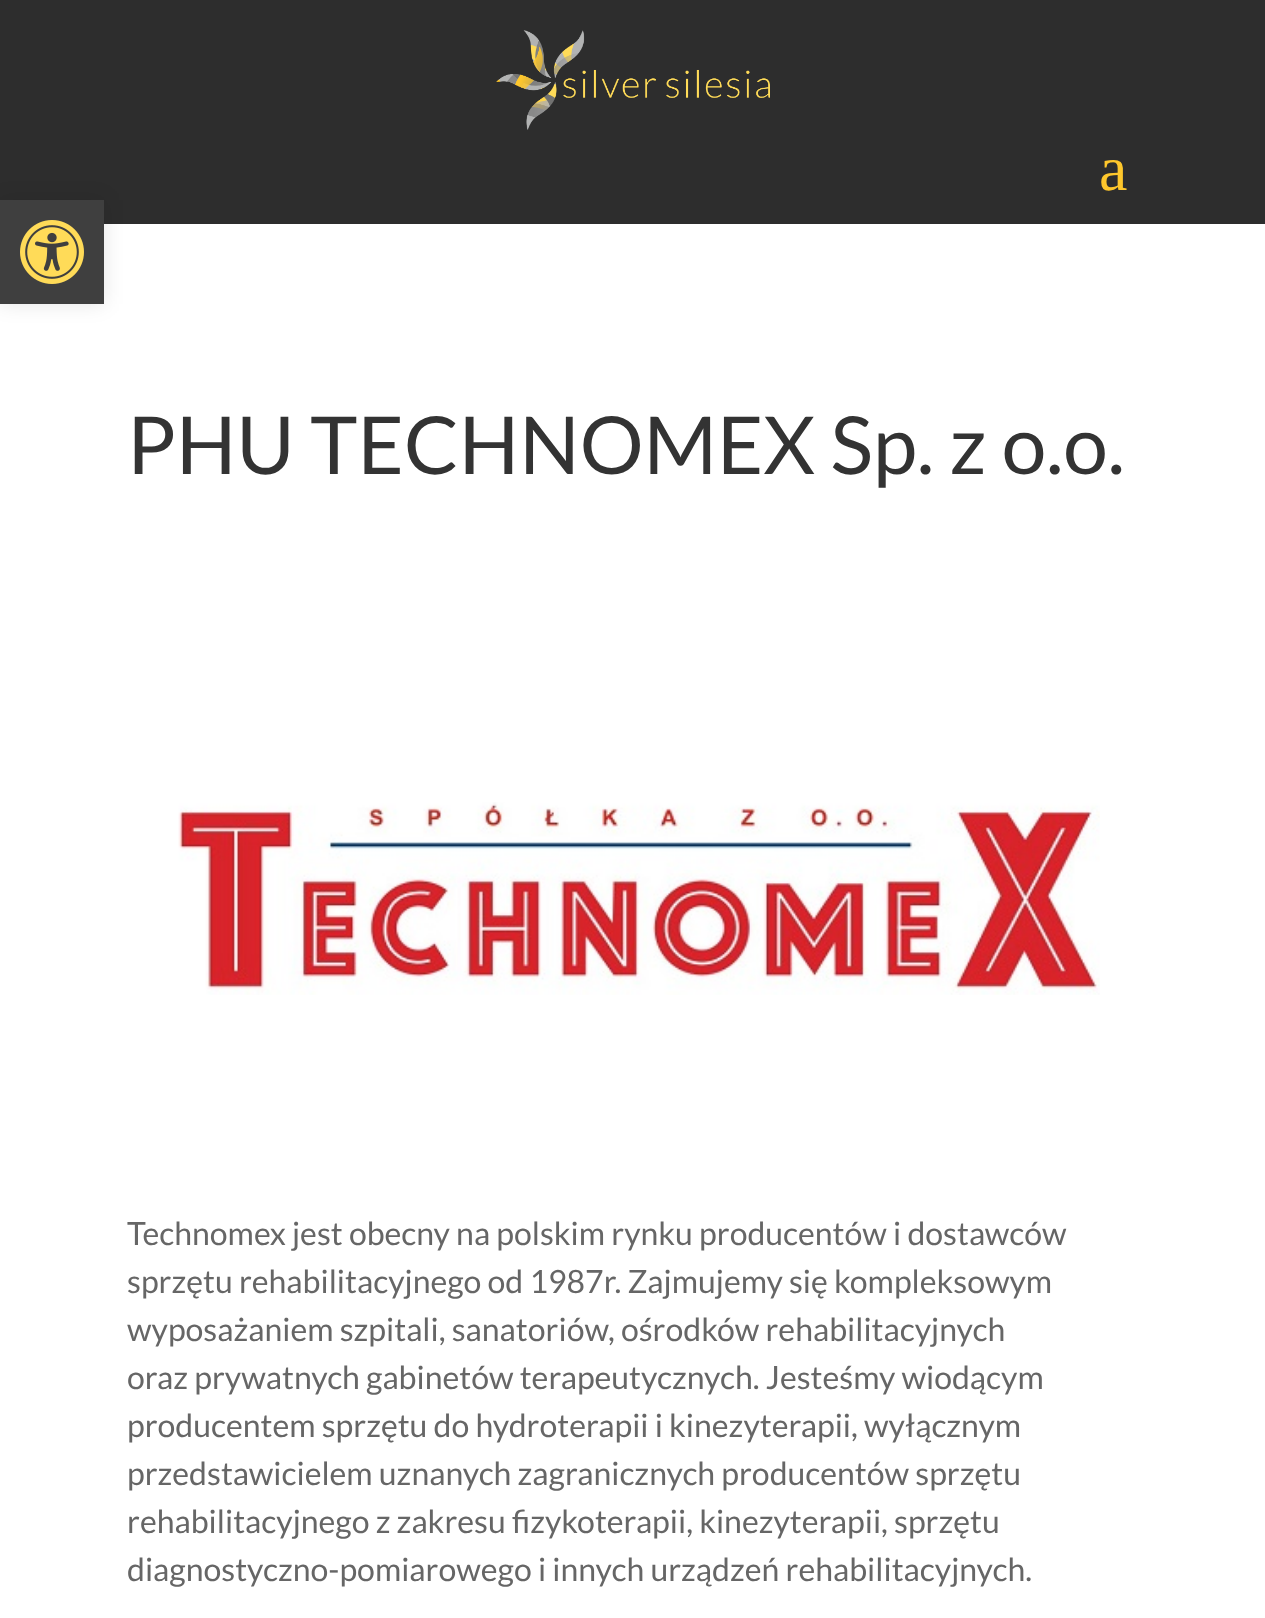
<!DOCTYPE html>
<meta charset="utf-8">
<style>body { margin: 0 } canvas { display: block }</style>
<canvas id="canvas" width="1265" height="1618"></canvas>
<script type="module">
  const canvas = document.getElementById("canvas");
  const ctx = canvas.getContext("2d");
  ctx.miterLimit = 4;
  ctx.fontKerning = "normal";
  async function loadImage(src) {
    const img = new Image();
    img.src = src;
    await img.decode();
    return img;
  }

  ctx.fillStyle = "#ffffff";
  ctx.fillRect(0, 0, 1265, 1618);
  ctx.fillStyle = "#2d2d2d";
  ctx.fillRect(0, 0, 1265, 224);
  ctx.fillStyle = "rgba(0, 0, 0, 0.1)";
  ctx.filter = "blur(10px)";
  ctx.beginPath();
  ctx.rect(0, 200, 104, 104);
  ctx.fill();
  ctx.filter = "none";
  ctx.fillStyle = "#3f3f3f";
  ctx.fillRect(0, 200, 104, 104);
  ctx.drawImage(await loadImage("img1.png"), 20, 220, 64, 64);
  ctx.drawImage(await loadImage("img2.png"), 496, 30, 274, 100);
  ctx.font = "64px Liberation Serif";
  ctx.fillStyle = "#fec72c";
  ctx.fillText("a", 1099, 190);
  ctx.font = "80px Lato";
  ctx.fillStyle = "#333333";
  ctx.fillText("PHU TECHNOMEX Sp. z o.o.", 127, 474);
  ctx.drawImage(await loadImage("img3.png"), 178, 802, 922, 193);
  ctx.font = "32px Lato";
  ctx.fillStyle = "#666666";
  ctx.fillText("Technomex jest obecny na polskim rynku producentów i dostawców", 127, 1245);
  ctx.fillText("sprzętu rehabilitacyjnego od 1987r. Zajmujemy się kompleksowym", 127, 1293);
  ctx.fillText("wyposażaniem szpitali, sanatoriów, ośrodków rehabilitacyjnych", 127, 1341);
  ctx.fillText("oraz prywatnych gabinetów terapeutycznych. Jesteśmy wiodącym", 127, 1389);
  ctx.fillText("producentem sprzętu do hydroterapii i kinezyterapii, wyłącznym", 127, 1437);
  ctx.fillText("przedstawicielem uznanych zagranicznych producentów sprzętu", 127, 1485);
  ctx.fillText("rehabilitacyjnego z zakresu fizykoterapii, kinezyterapii, sprzętu", 127, 1533);
  ctx.fillText("diagnostyczno-pomiarowego i innych urządzeń rehabilitacyjnych.", 127, 1581);
</script>
